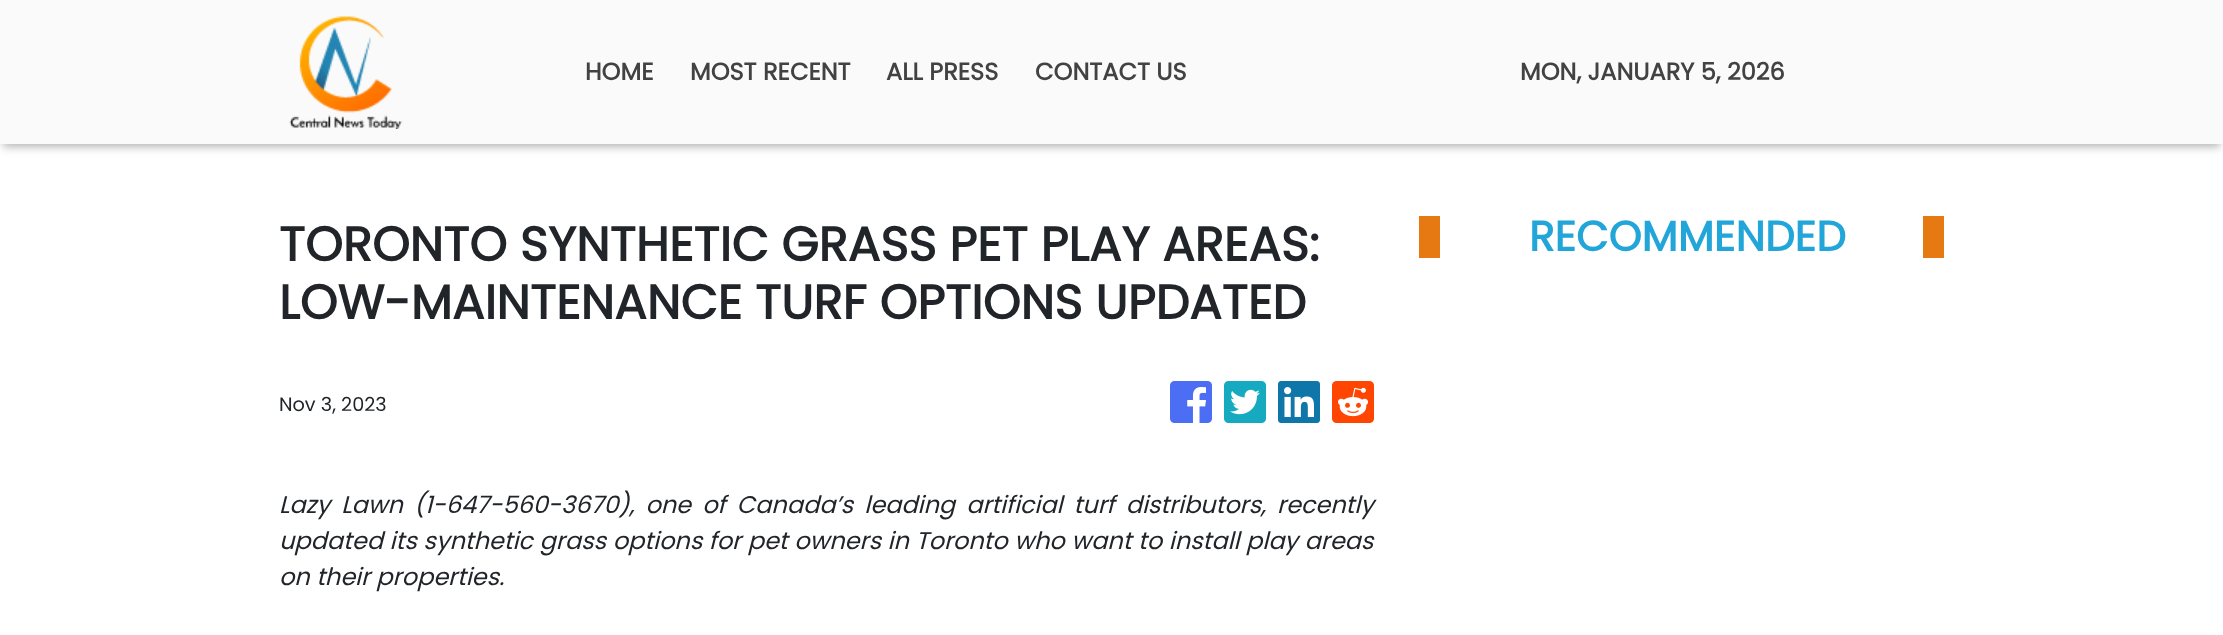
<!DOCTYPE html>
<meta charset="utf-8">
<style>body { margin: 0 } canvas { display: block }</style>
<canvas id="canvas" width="2223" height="635"></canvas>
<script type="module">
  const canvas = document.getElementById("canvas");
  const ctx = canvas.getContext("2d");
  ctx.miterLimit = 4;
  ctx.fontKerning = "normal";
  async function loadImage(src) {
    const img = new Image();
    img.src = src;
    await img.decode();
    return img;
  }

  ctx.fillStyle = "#ffffff";
  ctx.fillRect(0, 0, 2223, 635);
  ctx.fillStyle = "#b6b6b6";
  ctx.filter = "blur(4px)";
  ctx.beginPath();
  ctx.rect(3, 9, 2217, 138);
  ctx.fill();
  ctx.filter = "none";
  ctx.fillStyle = "#fafafa";
  ctx.fillRect(0, 0, 2223, 144);
  ctx.drawImage(await loadImage("img1.png"), 289, 16, 114, 113);
  ctx.font = "bold 24px Poppins";
  ctx.fillStyle = "#424242";
  ctx.fillText("HOME", 585, 80);
  ctx.fillText("MOST RECENT", 690, 80);
  ctx.fillText("ALL PRESS", 886, 80);
  ctx.fillText("CONTACT US", 1035, 80);
  ctx.fillText("MON, JANUARY 5, 2026", 1520, 80);
  ctx.font = "bold 48px Poppins";
  ctx.fillStyle = "#212529";
  ctx.fillText("TORONTO SYNTHETIC GRASS PET PLAY AREAS:", 279, 261);
  ctx.fillText("LOW-MAINTENANCE TURF OPTIONS UPDATED", 279, 319);
  ctx.font = "19.25px Poppins";
  ctx.fillText("Nov 3, 2023", 279, 411);
  ctx.drawImage(await loadImage("img2.png"), 1170, 381, 42, 42);
  ctx.drawImage(await loadImage("img3.png"), 1224, 381, 42, 42);
  ctx.drawImage(await loadImage("img4.png"), 1278, 381, 42, 42);
  ctx.drawImage(await loadImage("img5.png"), 1332, 381, 42, 42);
  ctx.wordSpacing = "4.75px";
  ctx.font = "italic 24px Poppins";
  ctx.fillText("Lazy Lawn (1-647-560-3670), one of Canada’s leading artificial turf distributors, recently", 279, 513);
  ctx.wordSpacing = "0.25px";
  ctx.fillText("updated its synthetic grass options for pet owners in Toronto who want to install play areas", 279, 549);
  ctx.wordSpacing = "0px";
  ctx.fillText("on their properties.", 279, 585);
  ctx.fillStyle = "#e77913";
  ctx.fillRect(1923, 216, 21, 42);
  ctx.fillRect(1419, 216, 21, 42);
  ctx.font = "bold 42px Poppins";
  ctx.fillStyle = "#22a5d9";
  ctx.fillText("RECOMMENDED", 1529, 251);
</script>
